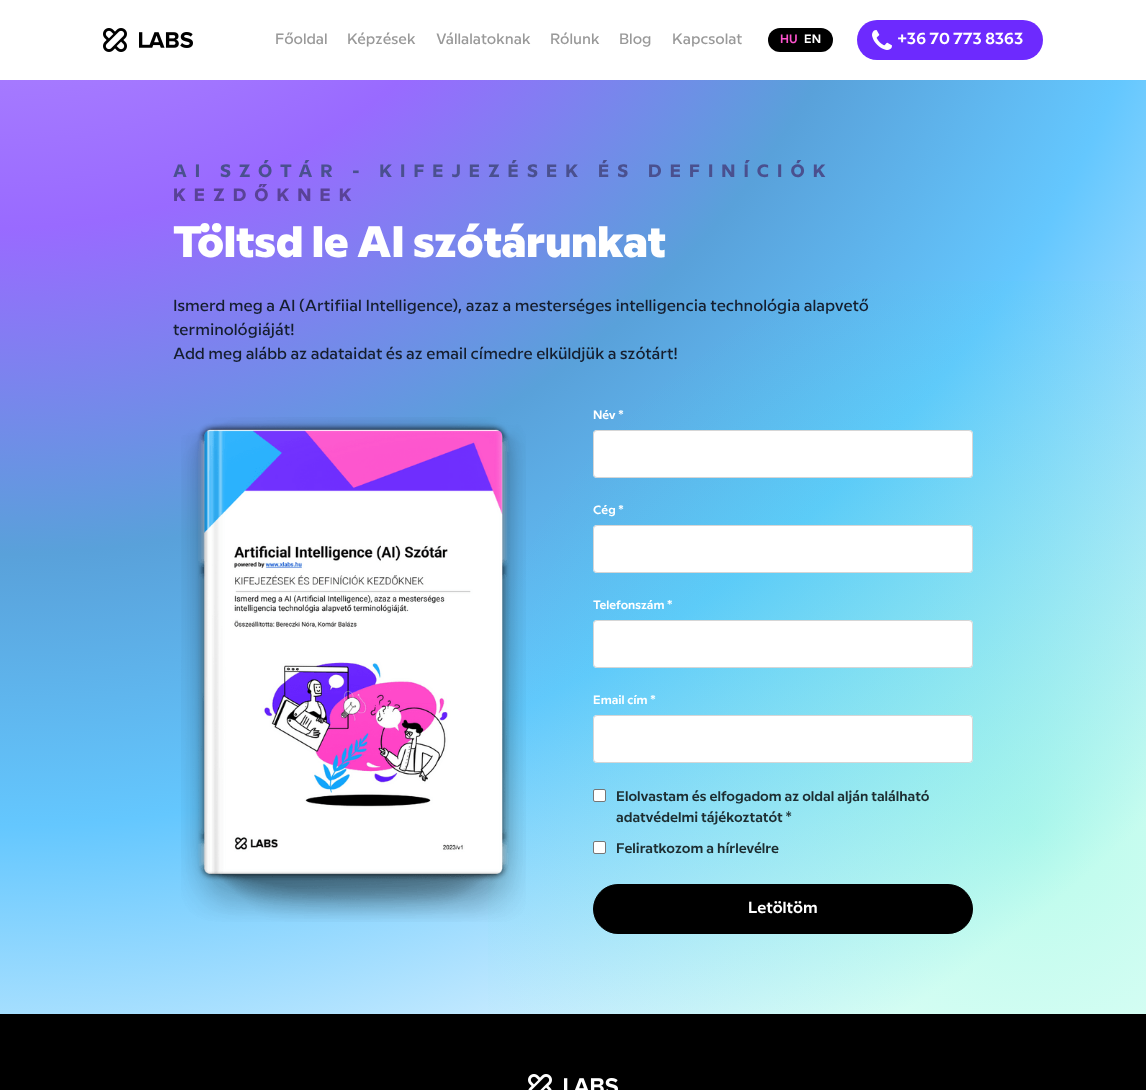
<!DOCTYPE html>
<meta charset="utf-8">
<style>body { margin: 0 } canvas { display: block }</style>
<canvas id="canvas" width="1146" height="1090"></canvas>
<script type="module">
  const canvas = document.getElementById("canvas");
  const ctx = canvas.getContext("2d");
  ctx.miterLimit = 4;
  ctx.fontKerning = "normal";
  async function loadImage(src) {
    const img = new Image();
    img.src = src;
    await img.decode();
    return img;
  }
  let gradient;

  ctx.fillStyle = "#ffffff";
  ctx.fillRect(0, 0, 1146, 1090);
  ctx.drawImage(await loadImage("img1.png"), 103, 28, 90, 24);
  ctx.font = "500 15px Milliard";
  ctx.fillStyle = "#999999";
  ctx.fillText("Főoldal", 275, 44);
  ctx.fillText("Képzések", 347, 44);
  ctx.fillText("Vállalatoknak", 436, 44);
  ctx.fillText("Rólunk", 550, 44);
  ctx.fillText("Blog", 619, 44);
  ctx.fillText("Kapcsolat", 672, 44);
  ctx.fillStyle = "#000000";
  ctx.beginPath();
  ctx.roundRect(768, 28, 65, 24, 12);
  ctx.fill();
  ctx.font = "600 12px Milliard";
  ctx.fillStyle = "#fd53cd";
  ctx.fillText("HU", 780, 43);
  ctx.fillStyle = "#ffffff";
  ctx.fillText("EN", 804, 43);
  ctx.fillStyle = "#6d2afe";
  ctx.beginPath();
  ctx.roundRect(857, 20, 186, 40, 20);
  ctx.fill();
  ctx.drawImage(await loadImage("img2.png"), 872, 30, 20, 20);
  ctx.font = "600 16px Milliard";
  ctx.fillStyle = "#ffffff";
  ctx.fillText("+36 70 773 8363", 897, 44);
  gradient = ctx.createRadialGradient(0, -387, 0, 0, -387, 1810);
  gradient.addColorStop(0, "#fe87dc");
  gradient.addColorStop(0.17, "#b28aff");
  gradient.addColorStop(0.34, "#996aff");
  gradient.addColorStop(0.52, "#59a1da");
  gradient.addColorStop(0.67, "#64c7fe");
  gradient.addColorStop(0.92, "#ffffff");
  ctx.fillStyle = gradient;
  ctx.fillRect(0, 80, 1146, 934);
  gradient = ctx.createRadialGradient(1031, 827, 0, 1031, 827, 1274);
  gradient.addColorStop(0, "rgba(23, 244, 190, 0.3)");
  gradient.addColorStop(0.46, "rgba(23, 244, 190, 0)");
  ctx.fillStyle = gradient;
  ctx.fillRect(488, 281, 658, 733);
  ctx.letterSpacing = "8px";
  ctx.font = "bold 18px Milliard";
  ctx.fillStyle = "#4a508f";
  ctx.fillText("AI SZÓTÁR - KIFEJEZÉSEK ÉS DEFINÍCIÓK", 173, 177);
  ctx.fillStyle = "#594297";
  ctx.fillText("KEZDŐKNEK", 173, 201);
  ctx.letterSpacing = "0px";
  ctx.font = "800 44px Milliard";
  ctx.fillStyle = "#ffffff";
  ctx.fillText("Töltsd le AI szótárunkat", 173, 257);
  ctx.font = "500 16px Milliard";
  ctx.fillStyle = "#151e2e";
  ctx.fillText("Ismerd meg a AI (Artifiial Intelligence), azaz a mesterséges intelligencia technológia alapvető", 173, 311);
  ctx.fillText("terminológiáját!", 173, 335);
  ctx.fillText("Add meg alább az adataidat és az email címedre elküldjük a szótárt!", 173, 359);
  ctx.drawImage(await loadImage("img3.png"), 181, 417, 345, 505);
  ctx.font = "600 12px Milliard";
  ctx.fillStyle = "#ffffff";
  ctx.fillText("Név *", 593, 419);
  ctx.beginPath();
  ctx.roundRect(593, 430, 380, 48, 4);
  ctx.fill();
  ctx.beginPath();
  ctx.roundRect(593.5, 430.5, 379, 47, 3.5);
  ctx.strokeStyle = "rgba(0, 0, 0, 0.16)";
  ctx.stroke();
  ctx.fillText("Cég *", 593, 514);
  ctx.beginPath();
  ctx.roundRect(593, 525, 380, 48, 4);
  ctx.fill();
  ctx.beginPath();
  ctx.roundRect(593.5, 525.5, 379, 47, 3.5);
  ctx.stroke();
  ctx.fillText("Telefonszám *", 593, 609);
  ctx.beginPath();
  ctx.roundRect(593, 620, 380, 48, 4);
  ctx.fill();
  ctx.beginPath();
  ctx.roundRect(593.5, 620.5, 379, 47, 3.5);
  ctx.stroke();
  ctx.fillText("Email cím *", 593, 704);
  ctx.beginPath();
  ctx.roundRect(593, 715, 380, 48, 4);
  ctx.fill();
  ctx.beginPath();
  ctx.roundRect(593.5, 715.5, 379, 47, 3.5);
  ctx.stroke();
  ctx.beginPath();
  ctx.roundRect(593.5, 789.5, 12, 12, 1.5);
  ctx.fill();
  ctx.strokeStyle = "#767676";
  ctx.stroke();
  ctx.font = "600 14px Milliard";
  ctx.fillStyle = "#1d2d31";
  ctx.fillText("Elolvastam és elfogadom az oldal alján található", 616, 801);
  ctx.fillText("adatvédelmi tájékoztatót *", 616, 822);
  ctx.fillStyle = "#ffffff";
  ctx.beginPath();
  ctx.roundRect(593.5, 841.5, 12, 12, 1.5);
  ctx.fill();
  ctx.stroke();
  ctx.fillStyle = "#1d2d31";
  ctx.fillText("Feliratkozom a hírlevélre", 616, 853);
  ctx.fillStyle = "#000000";
  ctx.beginPath();
  ctx.roundRect(593.5, 884.5, 379, 49, 24.5);
  ctx.fill();
  ctx.strokeStyle = "#000000";
  ctx.stroke();
  ctx.font = "600 16px Milliard";
  ctx.fillStyle = "#ffffff";
  ctx.fillText("Letöltöm", 748, 913);
  ctx.fillStyle = "#000000";
  ctx.fillRect(0, 1014, 1146, 76);
  ctx.drawImage(await loadImage("img4.png"), 528, 1074, 90, 16);
</script>
